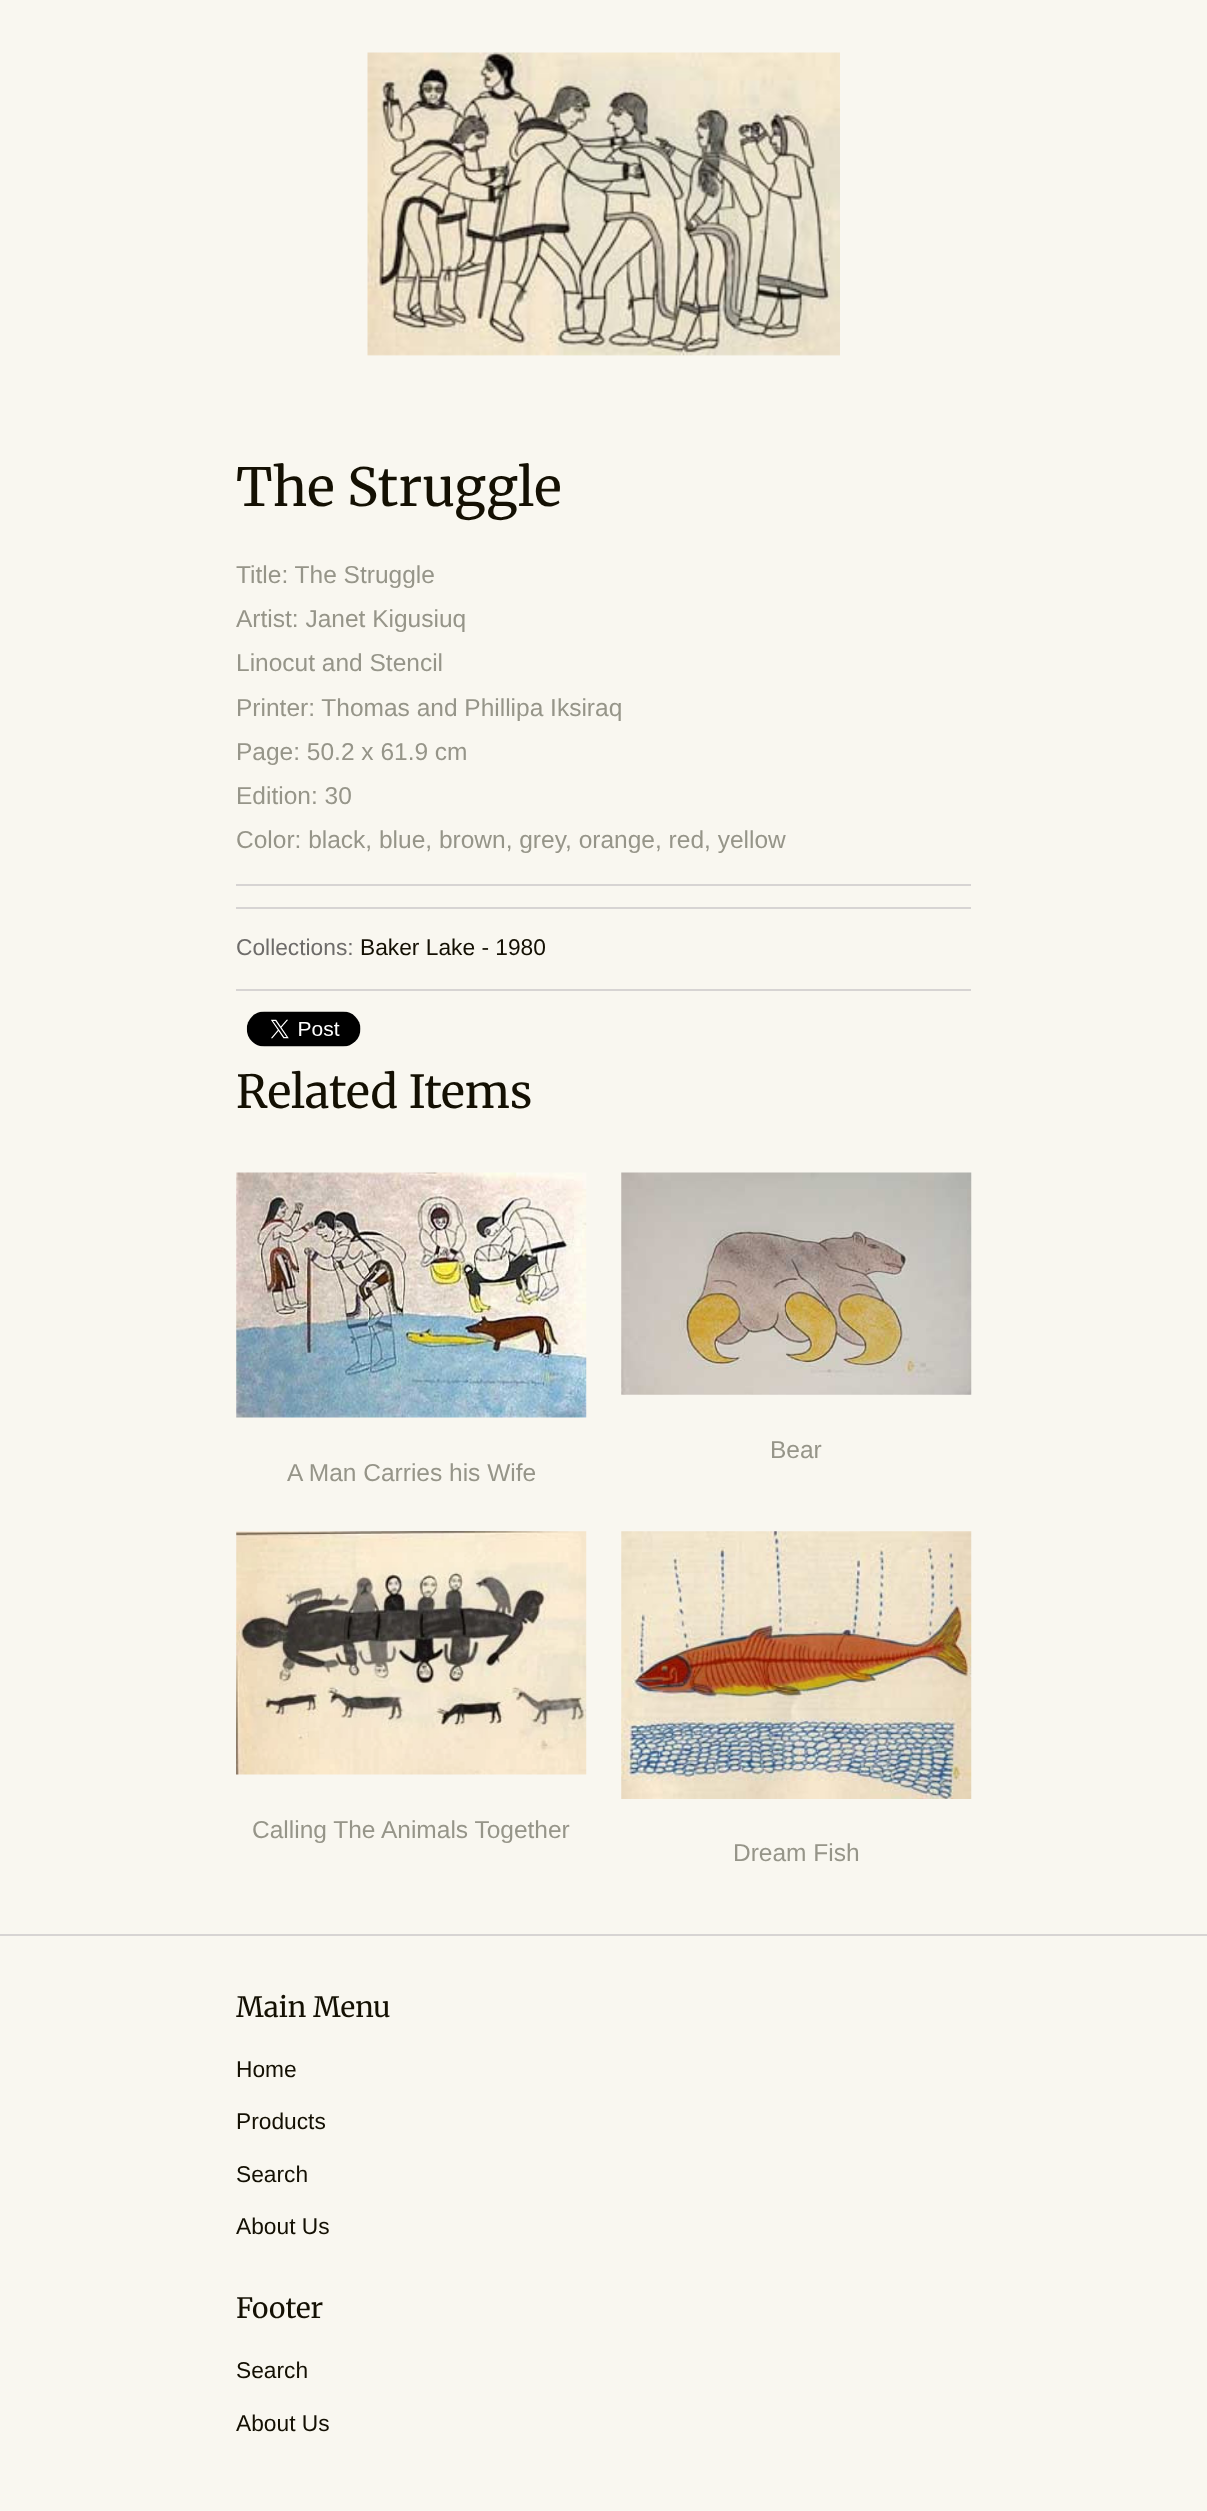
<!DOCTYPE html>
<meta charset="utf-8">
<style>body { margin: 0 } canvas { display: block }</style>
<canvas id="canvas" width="1207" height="2511"></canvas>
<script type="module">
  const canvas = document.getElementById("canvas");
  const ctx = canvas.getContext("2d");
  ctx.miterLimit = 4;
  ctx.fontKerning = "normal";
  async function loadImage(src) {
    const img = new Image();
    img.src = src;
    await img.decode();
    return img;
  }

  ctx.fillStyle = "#f9f7f0";
  ctx.fillRect(0, 0, 1207, 2511);
  ctx.drawImage(await loadImage("img1.png"), 367, 52, 473, 304);
  ctx.font = "52.5px Merriweather";
  ctx.fillStyle = "#141003";
  ctx.fillText("The Struggle", 236, 506);
  ctx.font = "24.5px Liberation Sans";
  ctx.fillStyle = "#969589";
  ctx.fillText("Title: The Struggle", 236, 583);
  ctx.fillText("Artist: Janet Kigusiuq", 236, 627);
  ctx.fillText("Linocut and Stencil", 236, 671);
  ctx.fillText("Printer: Thomas and Phillipa Iksiraq", 236, 716);
  ctx.fillText("Page: 50.2 x 61.9 cm", 236, 760);
  ctx.fillText("Edition: 30", 236, 804);
  ctx.fillText("Color: black, blue, brown, grey, orange, red, yellow", 236, 848);
  ctx.fillStyle = "#d7d4d3";
  ctx.fillRect(236, 884, 735, 2);
  ctx.fillRect(236, 907, 735, 2);
  ctx.font = "22.75px Liberation Sans";
  ctx.fillStyle = "#6e6c6a";
  ctx.fillText("Collections:", 236, 955);
  ctx.fillStyle = "#141003";
  ctx.fillText("Baker Lake - 1980", 360, 955);
  ctx.fillStyle = "#d7d4d3";
  ctx.fillRect(236, 989, 735, 2);
  ctx.drawImage(await loadImage("img2.png"), 246, 1011, 115, 36);
  ctx.font = "45.5px Merriweather";
  ctx.fillStyle = "#141003";
  ctx.fillText("Related Items", 236, 1108);
  ctx.drawImage(await loadImage("img3.png"), 621, 1172, 351, 223);
  ctx.font = "24.5px Liberation Sans";
  ctx.fillStyle = "#969589";
  ctx.fillText("Bear", 770, 1458);
  ctx.drawImage(await loadImage("img4.png"), 236, 1172, 351, 246);
  ctx.fillText("A Man Carries his Wife", 287, 1481);
  ctx.drawImage(await loadImage("img5.png"), 236, 1531, 351, 244);
  ctx.fillText("Calling The Animals Together", 252, 1838);
  ctx.drawImage(await loadImage("img6.png"), 621, 1531, 351, 268);
  ctx.fillText("Dream Fish", 733, 1861);
  ctx.fillStyle = "#d7d4d3";
  ctx.fillRect(0, 1934, 1207, 2);
  ctx.font = "28px Merriweather";
  ctx.fillStyle = "#141003";
  ctx.fillText("Main Menu", 236, 2017);
  ctx.font = "22.75px Liberation Sans";
  ctx.fillText("Home", 236, 2077);
  ctx.fillText("Products", 236, 2129);
  ctx.fillText("Search", 236, 2182);
  ctx.fillText("About Us", 236, 2234);
  ctx.font = "28px Merriweather";
  ctx.fillText("Footer", 236, 2318);
  ctx.font = "22.75px Liberation Sans";
  ctx.fillText("Search", 236, 2378);
  ctx.fillText("About Us", 236, 2431);
</script>
